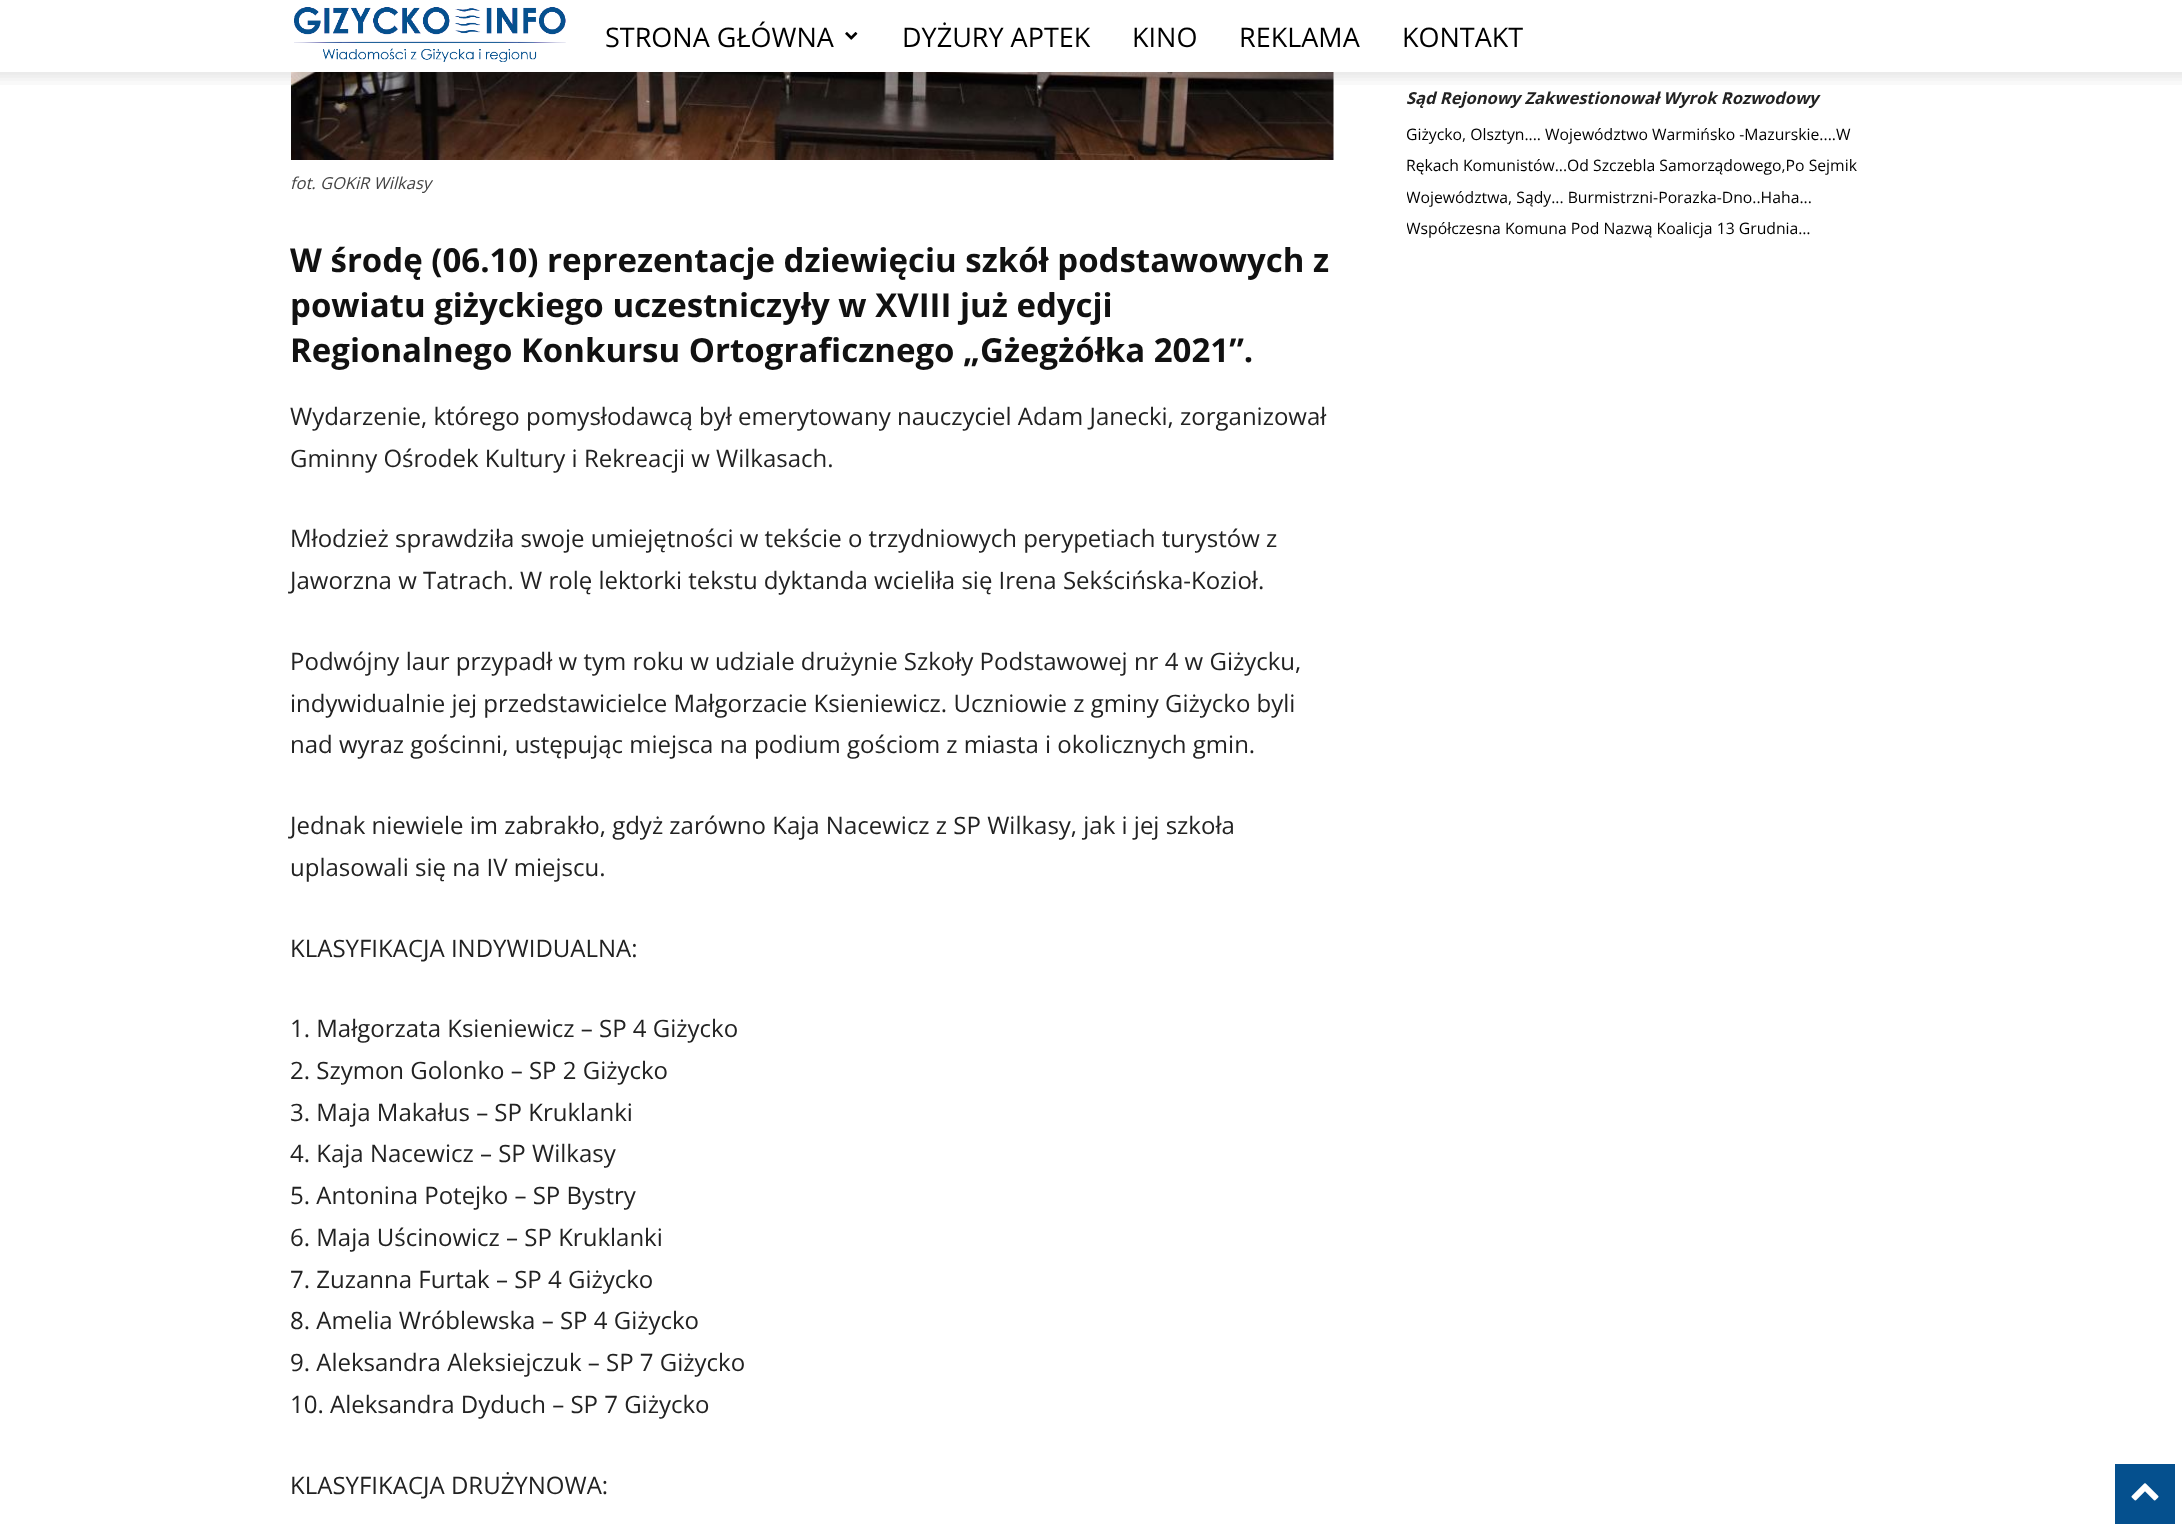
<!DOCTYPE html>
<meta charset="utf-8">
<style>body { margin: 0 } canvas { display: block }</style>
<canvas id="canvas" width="2182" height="1529"></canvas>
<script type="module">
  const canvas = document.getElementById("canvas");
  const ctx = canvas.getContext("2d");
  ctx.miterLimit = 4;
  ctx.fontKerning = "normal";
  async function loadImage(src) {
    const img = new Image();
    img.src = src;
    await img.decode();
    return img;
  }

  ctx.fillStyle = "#ffffff";
  ctx.fillRect(0, 0, 2182, 1529);
  ctx.drawImage(await loadImage("img1.png"), 294, 7, 272, 55);
  ctx.font = "27px Open Sans";
  ctx.fillStyle = "#000000";
  ctx.fillText("STRONA GŁÓWNA", 605, 47);
  ctx.drawImage(await loadImage("img2.png"), 845, 32, 13, 8);
  ctx.fillText("DYŻURY APTEK", 902, 47);
  ctx.fillText("KINO", 1132, 47);
  ctx.fillText("REKLAMA", 1239, 47);
  ctx.fillText("KONTAKT", 1402, 47);
  ctx.drawImage(await loadImage("img4.png"), 291, 72, 1043, 88);
  ctx.drawImage(await loadImage("img3.png"), 0, 72, 2182, 13);
  ctx.font = "italic 16.5px Open Sans";
  ctx.fillStyle = "#444444";
  ctx.fillText("fot. GOKiR Wilkasy", 290, 189);
  ctx.font = "bold 33px Open Sans";
  ctx.fillStyle = "#111111";
  ctx.fillText("W środę (06.10) reprezentacje dziewięciu szkół podstawowych z", 290, 272);
  ctx.fillText("powiatu giżyckiego uczestniczyły w XVIII już edycji", 290, 317);
  ctx.fillText("Regionalnego Konkursu Ortograficznego „Gżegżółka 2021”.", 290, 362);
  ctx.font = "24px Open Sans";
  ctx.fillStyle = "#222222";
  ctx.fillText("Wydarzenie, którego pomysłodawcą był emerytowany nauczyciel Adam Janecki, zorganizował", 290, 425);
  ctx.fillText("Gminny Ośrodek Kultury i Rekreacji w Wilkasach.", 290, 467);
  ctx.fillText("Młodzież sprawdziła swoje umiejętności w tekście o trzydniowych perypetiach turystów z", 290, 547);
  ctx.fillText("Jaworzna w Tatrach. W rolę lektorki tekstu dyktanda wcieliła się Irena Sekścińska-Kozioł.", 290, 589);
  ctx.fillText("Podwójny laur przypadł w tym roku w udziale drużynie Szkoły Podstawowej nr 4 w Giżycku,", 290, 670);
  ctx.fillText("indywidualnie jej przedstawicielce Małgorzacie Ksieniewicz. Uczniowie z gminy Giżycko byli", 290, 712);
  ctx.fillText("nad wyraz gościnni, ustępując miejsca na podium gościom z miasta i okolicznych gmin.", 290, 753);
  ctx.fillText("Jednak niewiele im zabrakło, gdyż zarówno Kaja Nacewicz z SP Wilkasy, jak i jej szkoła", 290, 834);
  ctx.fillText("uplasowali się na IV miejscu.", 290, 876);
  ctx.fillText("KLASYFIKACJA INDYWIDUALNA:", 290, 957);
  ctx.fillText("1. Małgorzata Ksieniewicz – SP 4 Giżycko", 290, 1037);
  ctx.fillText("2. Szymon Golonko – SP 2 Giżycko", 290, 1079);
  ctx.fillText("3. Maja Makałus – SP Kruklanki", 290, 1121);
  ctx.fillText("4. Kaja Nacewicz – SP Wilkasy", 290, 1162);
  ctx.fillText("5. Antonina Potejko – SP Bystry", 290, 1204);
  ctx.fillText("6. Maja Uścinowicz – SP Kruklanki", 290, 1246);
  ctx.fillText("7. Zuzanna Furtak – SP 4 Giżycko", 290, 1288);
  ctx.fillText("8. Amelia Wróblewska – SP 4 Giżycko", 290, 1329);
  ctx.fillText("9. Aleksandra Aleksiejczuk – SP 7 Giżycko", 290, 1371);
  ctx.fillText("10. Aleksandra Dyduch – SP 7 Giżycko", 290, 1413);
  ctx.fillText("KLASYFIKACJA DRUŻYNOWA:", 290, 1494);
  ctx.font = "italic bold 16.5px Open Sans";
  ctx.fillText("Sąd Rejonowy Zakwestionował Wyrok Rozwodowy", 1406, 104);
  ctx.font = "15.75px Open Sans";
  ctx.fillStyle = "#000000";
  ctx.fillText("Giżycko, Olsztyn.... Województwo Warmińsko -Mazurskie....W", 1406, 140);
  ctx.fillText("Rękach Komunistów...Od Szczebla Samorządowego,Po Sejmik", 1406, 171);
  ctx.save();
  ctx.beginPath();
  ctx.rect(1407, 0, 486, 312);
  ctx.clip();
  ctx.fillText("Województwa, Sądy... Burmistrzni-Porazka-Dno..Haha...", 1406, 203);
  ctx.fillText("Współczesna Komuna Pod Nazwą Koalicja 13 Grudnia…", 1406, 234);
  ctx.restore();
  ctx.fillStyle = "#05508e";
  ctx.fillRect(2115, 1464, 60, 60);
  ctx.drawImage(await loadImage("img5.png"), 2131, 1483, 28, 18);
</script>
